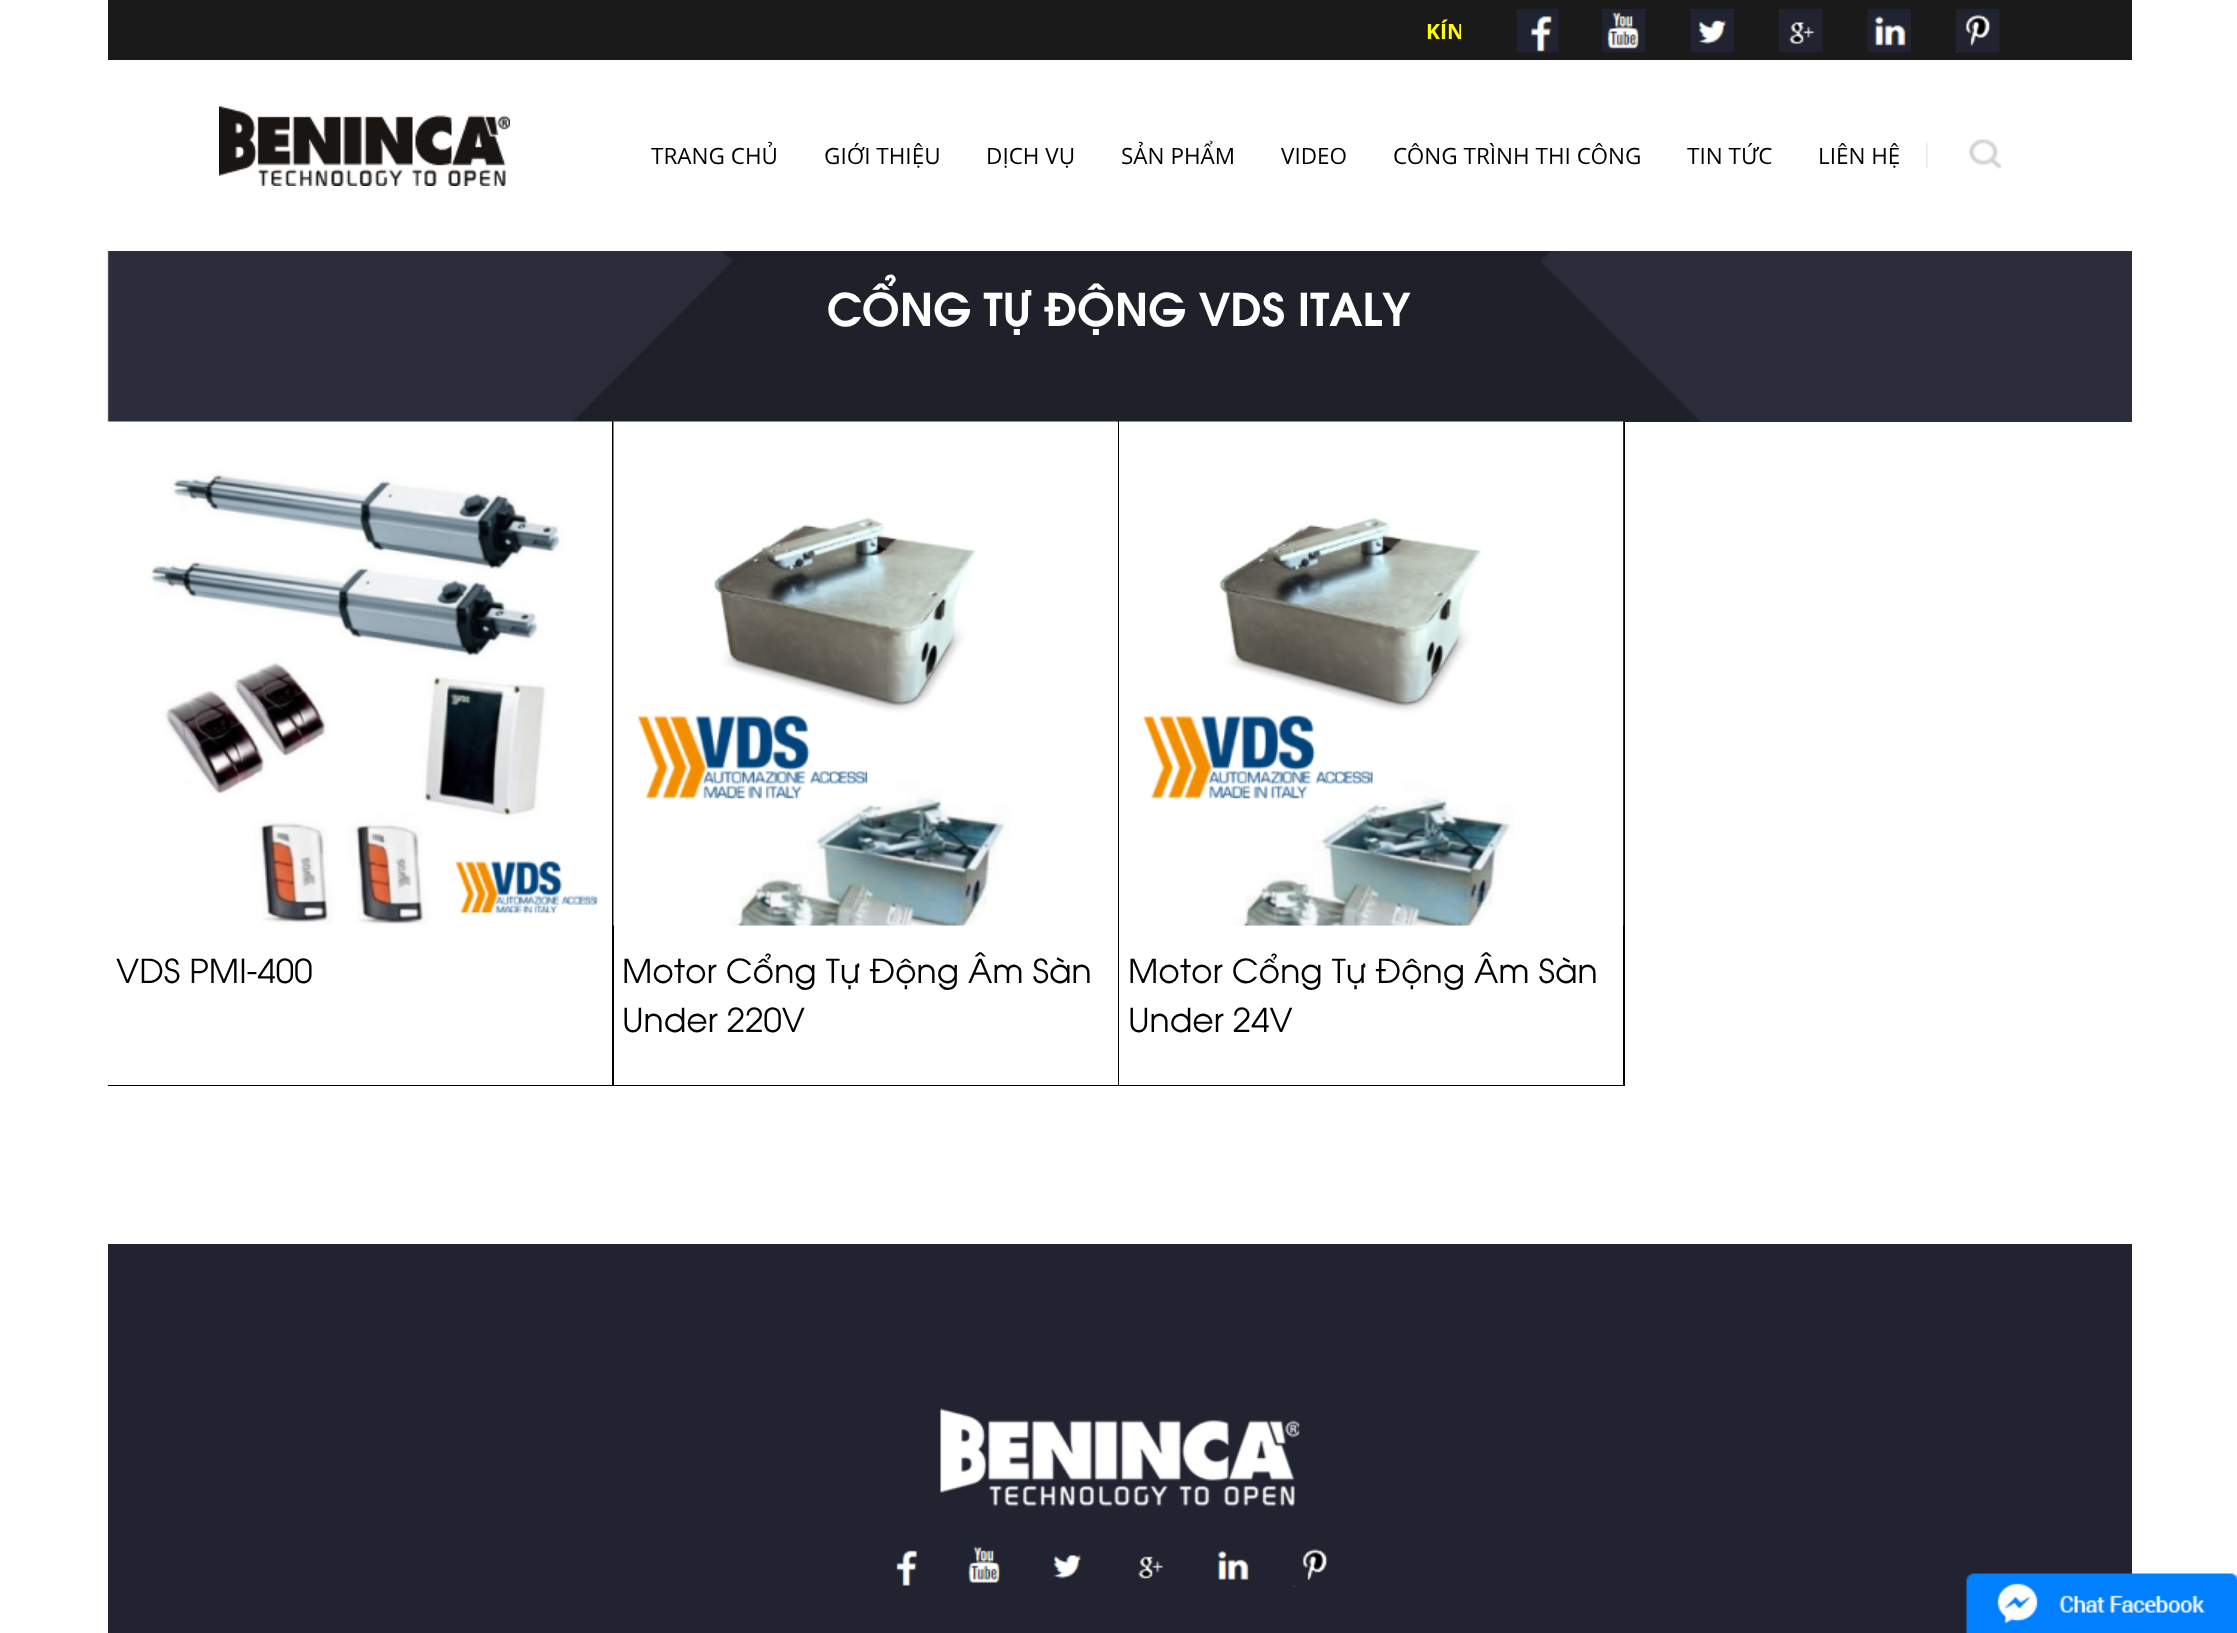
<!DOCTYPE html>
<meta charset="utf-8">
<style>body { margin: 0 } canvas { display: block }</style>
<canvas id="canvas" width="2237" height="1633"></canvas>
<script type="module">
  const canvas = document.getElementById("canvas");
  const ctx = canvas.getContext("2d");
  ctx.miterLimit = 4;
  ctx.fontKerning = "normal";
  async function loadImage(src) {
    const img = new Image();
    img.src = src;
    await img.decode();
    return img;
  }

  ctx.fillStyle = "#ffffff";
  ctx.fillRect(0, 0, 2237, 1633);
  ctx.fillStyle = "#1a1a1a";
  ctx.fillRect(108, 0, 2024, 60);
  ctx.save();
  ctx.beginPath();
  ctx.rect(219, 15, 1242, 32);
  ctx.clip();
  ctx.font = "bold 21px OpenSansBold";
  ctx.fillStyle = "#ffff00";
  ctx.fillText("KÍN", 1426, 39);
  ctx.restore();
  ctx.drawImage(await loadImage("img1.png"), 1516, 9, 43, 44);
  ctx.drawImage(await loadImage("img2.png"), 1602, 9, 44, 44);
  ctx.drawImage(await loadImage("img3.png"), 1690, 9, 44, 44);
  ctx.drawImage(await loadImage("img4.png"), 1779, 9, 44, 44);
  ctx.drawImage(await loadImage("img5.png"), 1867, 9, 44, 44);
  ctx.drawImage(await loadImage("img6.png"), 1956, 9, 44, 44);
  ctx.drawImage(await loadImage("img10.png"), 107, 249, 2025, 173);
  ctx.fillStyle = "#ffffff";
  ctx.fillRect(108, 249, 2024, 2);
  ctx.drawImage(await loadImage("img7.png"), 219, 106, 291, 80);
  ctx.font = "22.5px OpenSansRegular";
  ctx.fillStyle = "#000000";
  ctx.fillText("TRANG CHỦ", 651, 164);
  ctx.fillText("GIỚI THIỆU", 824, 164);
  ctx.fillText("DỊCH VỤ", 986, 164);
  ctx.fillText("SẢN PHẨM", 1121, 164);
  ctx.fillText("VIDEO", 1281, 164);
  ctx.fillText("CÔNG TRÌNH THI CÔNG", 1393, 164);
  ctx.fillText("TIN TỨC", 1687, 164);
  ctx.fillText("LIÊN HỆ", 1818, 164);
  ctx.drawImage(await loadImage("img8.png"), 1926, 142, 2, 27);
  ctx.drawImage(await loadImage("img9.png"), 1969, 139, 32, 30);
  ctx.font = "bold 45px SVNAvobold";
  ctx.fillStyle = "#ffffff";
  ctx.fillText("CỔNG TỰ ĐỘNG VDS ITALY", 827, 326);
  ctx.fillStyle = "#000000";
  ctx.fillRect(612, 422, 2, 664);
  ctx.fillRect(108, 1085, 506, 1);
  ctx.drawImage(await loadImage("img11.png"), 108, 421, 504, 504);
  ctx.font = "33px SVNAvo";
  ctx.fillText("VDS PMI-400", 116, 983);
  ctx.fillRect(1118, 422, 1, 664);
  ctx.fillRect(614, 1085, 505, 1);
  ctx.drawImage(await loadImage("img12.png"), 613, 421, 505, 505);
  ctx.fillText("Motor Cổng Tự Động Âm Sàn", 622, 983);
  ctx.fillText("Under 220V", 622, 1032);
  ctx.fillRect(1623, 422, 2, 664);
  ctx.fillRect(1119, 1085, 506, 1);
  ctx.drawImage(await loadImage("img13.png"), 1119, 421, 505, 505);
  ctx.fillText("Motor Cổng Tự Động Âm Sàn", 1128, 983);
  ctx.fillText("Under 24V", 1128, 1032);
  ctx.fillStyle = "#212331";
  ctx.fillRect(108, 1244, 2024, 389);
  ctx.drawImage(await loadImage("img14.png"), 940, 1408, 360, 99);
  ctx.drawImage(await loadImage("img15.png"), 895, 1550, 23, 36);
  ctx.drawImage(await loadImage("img16.png"), 967, 1546, 34, 37);
  ctx.drawImage(await loadImage("img17.png"), 1053, 1554, 29, 25);
  ctx.drawImage(await loadImage("img18.png"), 1138, 1556, 25, 23);
  ctx.drawImage(await loadImage("img19.png"), 1217, 1550, 32, 30);
  ctx.drawImage(await loadImage("img20.png"), 1293, 1549, 35, 38);
  ctx.drawImage(await loadImage("img21.png"), 1966, 1573, 271, 60);
</script>
